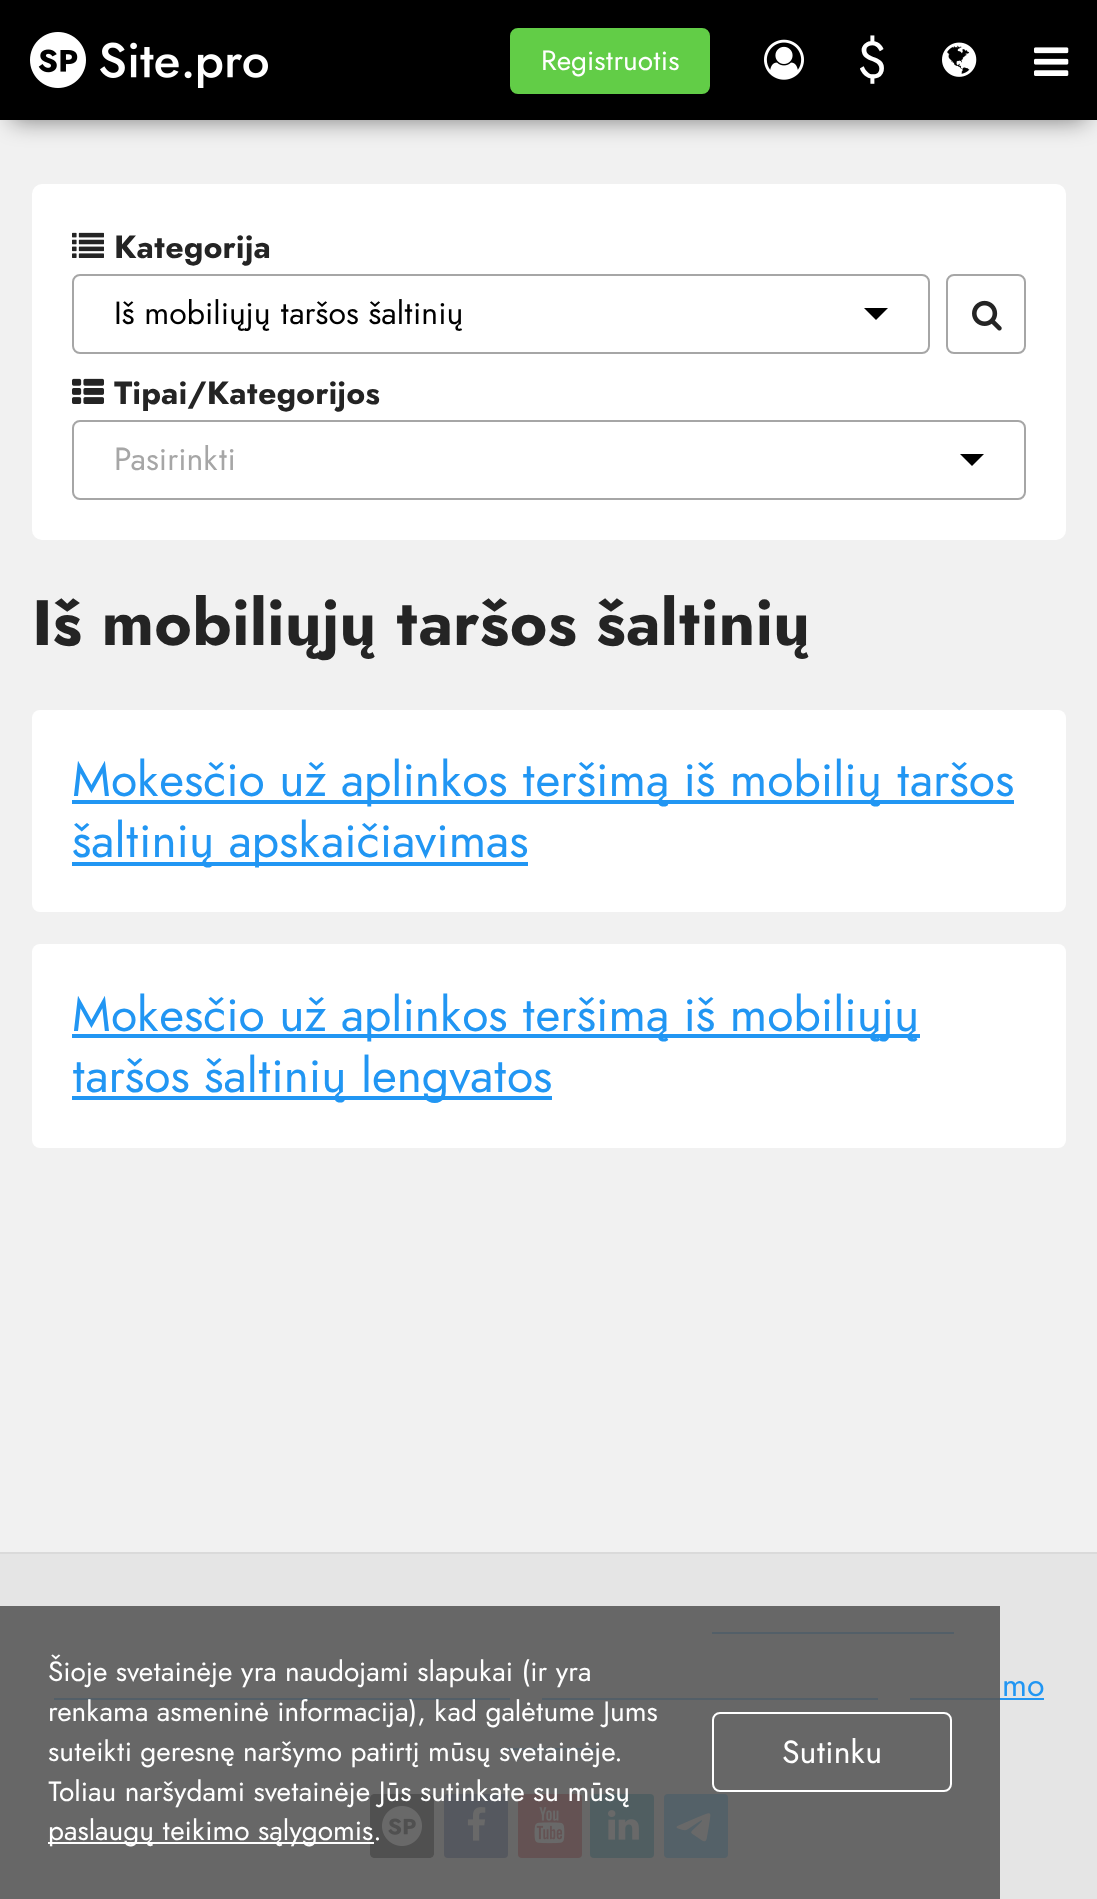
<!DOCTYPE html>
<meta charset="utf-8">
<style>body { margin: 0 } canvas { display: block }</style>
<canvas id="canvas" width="1097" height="1899"></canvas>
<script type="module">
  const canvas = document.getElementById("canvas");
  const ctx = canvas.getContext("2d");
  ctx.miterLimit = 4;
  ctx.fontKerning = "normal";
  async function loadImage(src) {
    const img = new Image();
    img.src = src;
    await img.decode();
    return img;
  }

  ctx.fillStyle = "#f1f1f1";
  ctx.fillRect(0, 0, 1097, 1899);
  ctx.fillStyle = "rgba(0, 0, 0, 0.5)";
  ctx.filter = "blur(12px)";
  ctx.beginPath();
  ctx.rect(12, 24, 1074, 96);
  ctx.fill();
  ctx.filter = "none";
  ctx.fillStyle = "#000000";
  ctx.fillRect(0, 0, 1097, 120);
  ctx.drawImage(await loadImage("img1.png"), 30, 32, 238, 56);
  ctx.fillStyle = "#62cd47";
  ctx.beginPath();
  ctx.roundRect(511, 29, 198, 64, 7);
  ctx.fill();
  ctx.strokeStyle = "#62cd47";
  ctx.lineWidth = 2;
  ctx.stroke();
  ctx.font = "28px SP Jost";
  ctx.fillStyle = "#ffffff";
  ctx.fillText("Registruotis", 541, 70);
  ctx.drawImage(await loadImage("img2.png"), 764, 39, 40, 41);
  ctx.font = "52px SP Jost";
  ctx.fillText("$", 857, 78);
  ctx.drawImage(await loadImage("img3.png"), 942, 42, 35, 35);
  ctx.drawImage(await loadImage("img4.png"), 1034, 47, 35, 29);
  ctx.beginPath();
  ctx.roundRect(32, 184, 1034, 356, 10);
  ctx.fill();
  ctx.drawImage(await loadImage("img5.png"), 72, 232, 32, 26);
  ctx.font = "bold 32px Jost";
  ctx.fillStyle = "#242424";
  ctx.fillText("Kategorija", 114, 258);
  ctx.beginPath();
  ctx.roundRect(73, 275, 856, 78, 7);
  ctx.strokeStyle = "#a6a6a6";
  ctx.stroke();
  ctx.font = "32px SP Jost";
  ctx.fillStyle = "#000000";
  ctx.fillText("Iš mobiliųjų taršos šaltinių", 114, 324);
  ctx.beginPath();
  ctx.moveTo(864, 308);
  ctx.lineTo(888, 308);
  ctx.lineTo(876, 320);
  ctx.closePath();
  ctx.fill();
  ctx.drawImage(await loadImage("img6.png"), 972, 300, 30, 31);
  ctx.beginPath();
  ctx.roundRect(947, 275, 78, 78, 7);
  ctx.stroke();
  ctx.drawImage(await loadImage("img7.png"), 72, 378, 32, 26);
  ctx.font = "bold 32px Jost";
  ctx.fillStyle = "#242424";
  ctx.fillText("Tipai/Kategorijos", 114, 404);
  ctx.beginPath();
  ctx.roundRect(73, 421, 952, 78, 7);
  ctx.stroke();
  ctx.font = "32px SP Jost";
  ctx.fillStyle = "#a6a6a6";
  ctx.fillText("Pasirinkti", 114, 470);
  ctx.fillStyle = "#000000";
  ctx.beginPath();
  ctx.moveTo(960, 454);
  ctx.lineTo(984, 454);
  ctx.lineTo(972, 466);
  ctx.closePath();
  ctx.fill();
  ctx.font = "bold 64px Jost";
  ctx.fillStyle = "#242424";
  ctx.fillText("Iš mobiliųjų taršos šaltinių", 32, 645);
  ctx.fillStyle = "#ffffff";
  ctx.beginPath();
  ctx.roundRect(32, 710, 1034, 202, 8);
  ctx.fill();
  ctx.fillStyle = "#2196f3";
  ctx.fillRect(72, 800, 942, 4);
  ctx.font = "48px SP Jost";
  ctx.fillText("Mokesčio už aplinkos teršimą iš mobilių taršos", 72, 796);
  ctx.fillRect(72, 862, 456, 4);
  ctx.fillText("šaltinių apskaičiavimas", 72, 857);
  ctx.fillStyle = "#ffffff";
  ctx.beginPath();
  ctx.roundRect(32, 944, 1034, 204, 8);
  ctx.fill();
  ctx.fillStyle = "#2196f3";
  ctx.fillRect(72, 1034, 848, 4);
  ctx.fillText("Mokesčio už aplinkos teršimą iš mobiliųjų", 72, 1031);
  ctx.fillRect(72, 1096, 480, 4);
  ctx.fillText("taršos šaltinių lengvatos", 72, 1092);
  ctx.fillStyle = "#e5e5e5";
  ctx.fillRect(0, 1554, 1097, 345);
  ctx.fillStyle = "#dadada";
  ctx.fillRect(0, 1552, 1097, 2);
  ctx.fillStyle = "#2196f3";
  ctx.fillRect(712, 1632, 242, 2);
  ctx.font = "32px SP Jost";
  ctx.fillText("mo", 1002, 1696);
  ctx.fillRect(910, 1698, 134, 2);
  ctx.fillRect(500, 1748, 98, 2);
  ctx.fillRect(54, 1698, 456, 2);
  ctx.fillRect(542, 1698, 336, 2);
  ctx.drawImage(await loadImage("img8.png"), 370, 1794, 64, 64);
  ctx.fillStyle = "#335397";
  ctx.beginPath();
  ctx.roundRect(444, 1794, 64, 64, 4);
  ctx.fill();
  ctx.drawImage(await loadImage("img9.png"), 467, 1807, 19, 34);
  ctx.fillStyle = "#cc181e";
  ctx.beginPath();
  ctx.roundRect(518, 1794, 64, 64, 4);
  ctx.fill();
  ctx.drawImage(await loadImage("img10.png"), 534, 1807, 31, 37);
  ctx.fillStyle = "#018faf";
  ctx.beginPath();
  ctx.roundRect(590, 1794, 64, 64, 4);
  ctx.fill();
  ctx.drawImage(await loadImage("img11.png"), 608, 1810, 31, 30);
  ctx.fillStyle = "#2aabee";
  ctx.beginPath();
  ctx.roundRect(664, 1794, 64, 64, 4);
  ctx.fill();
  ctx.drawImage(await loadImage("img12.png"), 676, 1813, 35, 29);
  ctx.fillStyle = "rgba(89, 89, 89, 0.9)";
  ctx.fillRect(0, 1606, 1000, 293);
  ctx.font = "28px SP Jost";
  ctx.fillStyle = "#ffffff";
  ctx.fillText("Šioje svetainėje yra naudojami slapukai (ir yra", 48, 1681);
  ctx.fillText("renkama asmeninė informacija), kad galėtume Jums", 48, 1721);
  ctx.fillText("suteikti geresnę naršymo patirtį mūsų svetainėje.", 48, 1761);
  ctx.fillText("Toliau naršydami svetainėje Jūs sutinkate su mūsų", 48, 1801);
  ctx.fillRect(48, 1842, 326, 2);
  ctx.fillText("paslaugų teikimo sąlygomis.", 48, 1840);
  ctx.beginPath();
  ctx.roundRect(713, 1713, 238, 78, 7);
  ctx.strokeStyle = "#ffffff";
  ctx.stroke();
  ctx.font = "32px SP Jost";
  ctx.fillText("Sutinku", 782, 1763);
</script>
